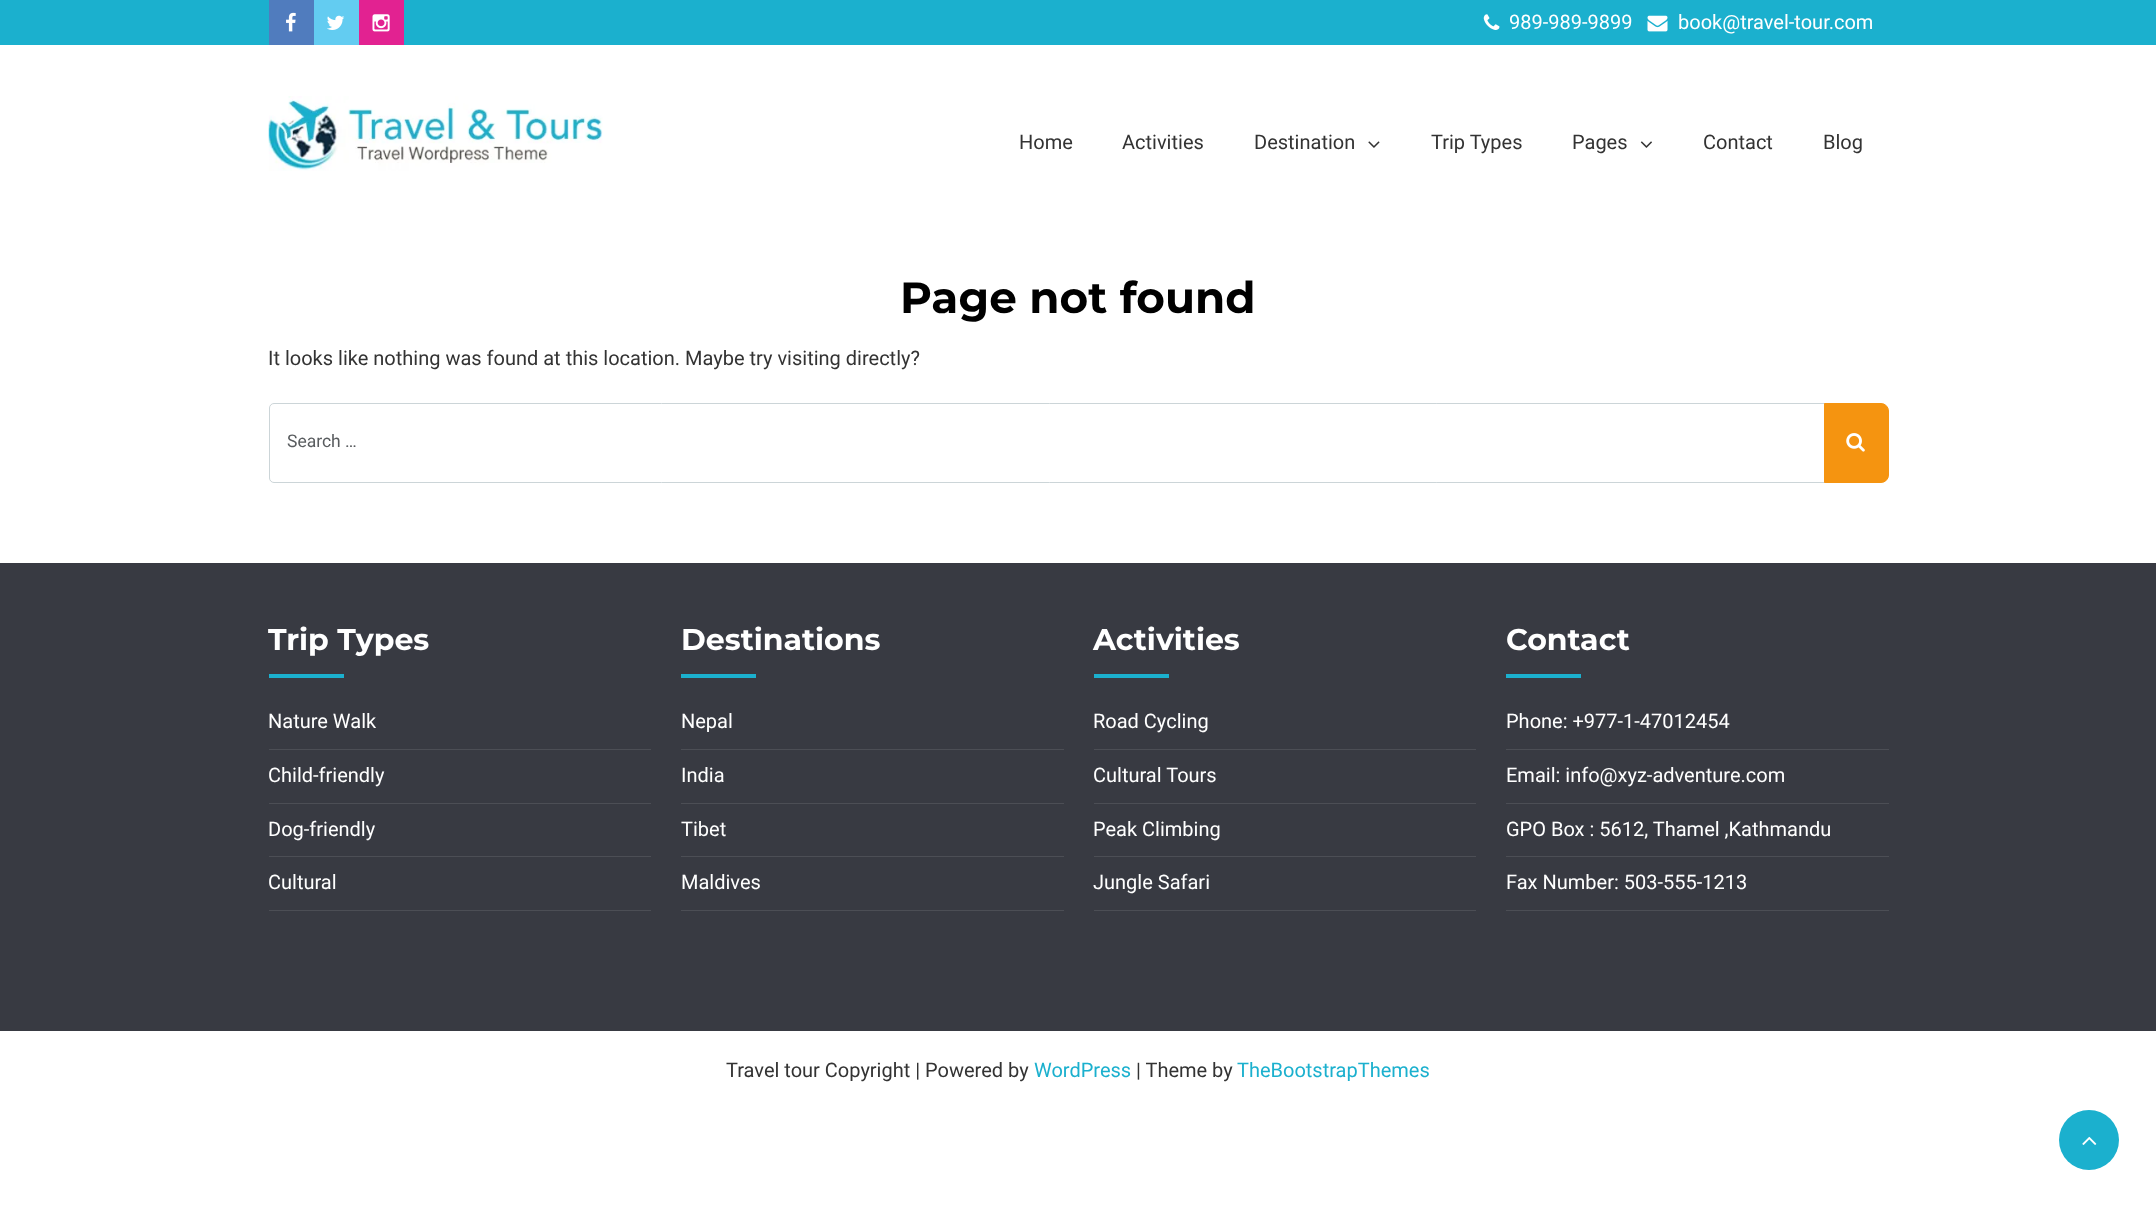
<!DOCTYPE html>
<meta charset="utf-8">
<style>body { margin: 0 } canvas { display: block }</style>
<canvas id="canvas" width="2156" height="1207"></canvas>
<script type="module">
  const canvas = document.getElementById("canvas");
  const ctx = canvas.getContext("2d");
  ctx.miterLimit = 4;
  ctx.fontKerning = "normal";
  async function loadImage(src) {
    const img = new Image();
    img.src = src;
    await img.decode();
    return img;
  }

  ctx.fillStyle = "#ffffff";
  ctx.fillRect(0, 0, 2156, 1207);
  ctx.fillStyle = "#1bb0ce";
  ctx.fillRect(0, 0, 2156, 45);
  ctx.fillStyle = "#507cbe";
  ctx.fillRect(269, 0, 45, 45);
  ctx.drawImage(await loadImage("img1.png"), 286, 12, 10, 20);
  ctx.fillStyle = "#63ccf1";
  ctx.fillRect(314, 0, 45, 45);
  ctx.drawImage(await loadImage("img2.png"), 327, 15, 18, 15);
  ctx.fillStyle = "#e22291";
  ctx.fillRect(359, 0, 45, 45);
  ctx.drawImage(await loadImage("img3.png"), 372, 14, 18, 18);
  ctx.drawImage(await loadImage("img4.png"), 1483, 14, 17, 16);
  ctx.font = "20px Roboto";
  ctx.fillStyle = "#ffffff";
  ctx.fillText("989-989-9899", 1509, 29);
  ctx.drawImage(await loadImage("img5.png"), 1647, 15, 21, 17);
  ctx.fillText("book@travel-tour.com", 1678, 29);
  ctx.drawImage(await loadImage("img6.png"), 268, 96, 335, 75);
  ctx.fillStyle = "#333333";
  ctx.fillText("Home", 1019, 149);
  ctx.fillText("Activities", 1122, 149);
  ctx.fillText("Destination", 1254, 149);
  ctx.drawImage(await loadImage("img7.png"), 1368, 141, 12, 7);
  ctx.fillText("Trip Types", 1431, 149);
  ctx.fillText("Pages", 1572, 149);
  ctx.drawImage(await loadImage("img8.png"), 1640, 141, 12, 7);
  ctx.fillText("Contact", 1703, 149);
  ctx.fillText("Blog", 1823, 149);
  ctx.font = "bold 43.75px Montserrat";
  ctx.fillStyle = "#000000";
  ctx.fillText("Page not found", 900, 313);
  ctx.font = "20px Roboto";
  ctx.fillStyle = "#333333";
  ctx.fillText("It looks like nothing was found at this location. Maybe try visiting directly?", 268, 365);
  ctx.beginPath();
  ctx.roundRect(269.5, 403.5, 1555, 79, [4.5, 0, 0, 4.5]);
  ctx.strokeStyle = "#ccd5d8";
  ctx.stroke();
  ctx.font = "17.5px Roboto";
  ctx.fillStyle = "#595c5f";
  ctx.fillText("Search …", 287, 447);
  ctx.fillStyle = "#f59410";
  ctx.beginPath();
  ctx.roundRect(1824.5, 403.5, 64, 79, [0, 7.5, 7.5, 0]);
  ctx.fill();
  ctx.strokeStyle = "#f59410";
  ctx.stroke();
  ctx.drawImage(await loadImage("img9.png"), 1846, 433, 19, 19);
  ctx.fillStyle = "#383a42";
  ctx.fillRect(0, 563, 2156, 468);
  ctx.font = "bold 30px Montserrat";
  ctx.fillStyle = "#ffffff";
  ctx.fillText("Trip Types", 268, 650);
  ctx.fillStyle = "#1bb0ce";
  ctx.fillRect(269, 674, 75, 4);
  ctx.fillStyle = "#4c4e55";
  ctx.fillRect(269, 749, 382, 1);
  ctx.font = "20px Roboto";
  ctx.fillStyle = "#ffffff";
  ctx.fillText("Nature Walk", 268, 728);
  ctx.fillStyle = "#4c4e55";
  ctx.fillRect(269, 803, 382, 1);
  ctx.fillStyle = "#ffffff";
  ctx.fillText("Child-friendly", 268, 782);
  ctx.fillStyle = "#4c4e55";
  ctx.fillRect(269, 856, 382, 1);
  ctx.fillStyle = "#ffffff";
  ctx.fillText("Dog-friendly", 268, 836);
  ctx.fillStyle = "#4c4e55";
  ctx.fillRect(269, 910, 382, 1);
  ctx.fillStyle = "#ffffff";
  ctx.fillText("Cultural", 268, 889);
  ctx.font = "bold 30px Montserrat";
  ctx.fillText("Destinations", 681, 650);
  ctx.fillStyle = "#1bb0ce";
  ctx.fillRect(681, 674, 75, 4);
  ctx.fillStyle = "#4c4e55";
  ctx.fillRect(681, 749, 383, 1);
  ctx.font = "20px Roboto";
  ctx.fillStyle = "#ffffff";
  ctx.fillText("Nepal", 681, 728);
  ctx.fillStyle = "#4c4e55";
  ctx.fillRect(681, 803, 383, 1);
  ctx.fillStyle = "#ffffff";
  ctx.fillText("India", 681, 782);
  ctx.fillStyle = "#4c4e55";
  ctx.fillRect(681, 856, 383, 1);
  ctx.fillStyle = "#ffffff";
  ctx.fillText("Tibet", 681, 836);
  ctx.fillStyle = "#4c4e55";
  ctx.fillRect(681, 910, 383, 1);
  ctx.fillStyle = "#ffffff";
  ctx.fillText("Maldives", 681, 889);
  ctx.font = "bold 30px Montserrat";
  ctx.fillText("Activities", 1093, 650);
  ctx.fillStyle = "#1bb0ce";
  ctx.fillRect(1094, 674, 75, 4);
  ctx.fillStyle = "#4c4e55";
  ctx.fillRect(1094, 749, 382, 1);
  ctx.font = "20px Roboto";
  ctx.fillStyle = "#ffffff";
  ctx.fillText("Road Cycling", 1093, 728);
  ctx.fillStyle = "#4c4e55";
  ctx.fillRect(1094, 803, 382, 1);
  ctx.fillStyle = "#ffffff";
  ctx.fillText("Cultural Tours", 1093, 782);
  ctx.fillStyle = "#4c4e55";
  ctx.fillRect(1094, 856, 382, 1);
  ctx.fillStyle = "#ffffff";
  ctx.fillText("Peak Climbing", 1093, 836);
  ctx.fillStyle = "#4c4e55";
  ctx.fillRect(1094, 910, 382, 1);
  ctx.fillStyle = "#ffffff";
  ctx.fillText("Jungle Safari", 1093, 889);
  ctx.font = "bold 30px Montserrat";
  ctx.fillText("Contact", 1506, 650);
  ctx.fillStyle = "#1bb0ce";
  ctx.fillRect(1506, 674, 75, 4);
  ctx.fillStyle = "#4c4e55";
  ctx.fillRect(1506, 749, 383, 1);
  ctx.font = "20px Roboto";
  ctx.fillStyle = "#ffffff";
  ctx.fillText("Phone: +977-1-47012454", 1506, 728);
  ctx.fillStyle = "#4c4e55";
  ctx.fillRect(1506, 803, 383, 1);
  ctx.fillStyle = "#ffffff";
  ctx.fillText("Email: info@xyz-adventure.com", 1506, 782);
  ctx.fillStyle = "#4c4e55";
  ctx.fillRect(1506, 856, 383, 1);
  ctx.fillStyle = "#ffffff";
  ctx.fillText("GPO Box : 5612, Thamel ,Kathmandu", 1506, 836);
  ctx.fillStyle = "#4c4e55";
  ctx.fillRect(1506, 910, 383, 1);
  ctx.fillStyle = "#ffffff";
  ctx.fillText("Fax Number: 503-555-1213", 1506, 889);
  ctx.fillStyle = "#333333";
  ctx.fillText("Travel tour Copyright | Powered by", 726, 1077);
  ctx.fillStyle = "#1bb0ce";
  ctx.fillText("WordPress", 1034, 1077);
  ctx.fillStyle = "#333333";
  ctx.fillText("| Theme by", 1136, 1077);
  ctx.fillStyle = "#1bb0ce";
  ctx.fillText("TheBootstrapThemes", 1237, 1077);
  ctx.beginPath();
  ctx.arc(2089, 1140, 30, 0, Math.PI * 2);
  ctx.fill();
  ctx.drawImage(await loadImage("img10.png"), 2082, 1136, 15, 9);
</script>
